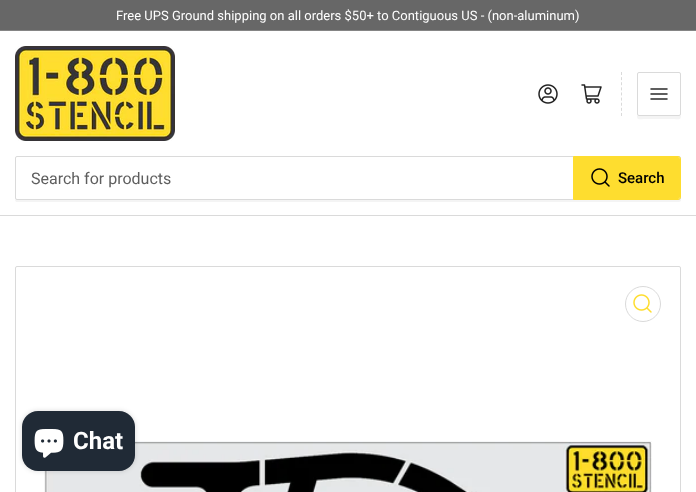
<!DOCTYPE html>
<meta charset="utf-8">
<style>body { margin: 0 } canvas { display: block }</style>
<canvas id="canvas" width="696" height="492"></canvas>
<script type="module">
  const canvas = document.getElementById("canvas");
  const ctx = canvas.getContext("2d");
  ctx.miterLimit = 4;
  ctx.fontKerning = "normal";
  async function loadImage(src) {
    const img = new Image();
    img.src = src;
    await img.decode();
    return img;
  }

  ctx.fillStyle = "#ffffff";
  ctx.fillRect(0, 0, 696, 492);
  ctx.fillStyle = "#676767";
  ctx.fillRect(0, 0, 696, 30);
  ctx.fillStyle = "#858585";
  ctx.fillRect(0, 30, 696, 1);
  ctx.font = "13px Roboto";
  ctx.fillStyle = "#ffffff";
  ctx.fillText("Free UPS Ground shipping on all orders $50+ to Contiguous US - (non-aluminum)", 116, 20);
  ctx.fillStyle = "#dadada";
  ctx.fillRect(0, 215, 696, 1);
  ctx.drawImage(await loadImage("img1.png"), 15, 46, 160, 95);
  ctx.drawImage(await loadImage("img2.png"), 538, 84, 20, 20);
  ctx.drawImage(await loadImage("img3.png"), 581, 84, 21, 20);
  ctx.beginPath();
  ctx.moveTo(621.5, 72);
  ctx.lineTo(621.5, 116);
  ctx.strokeStyle = "#dadada";
  ctx.setLineDash([3, 2.12]);
  ctx.stroke();
  ctx.fillStyle = "#f4f4f4";
  ctx.beginPath();
  ctx.moveTo(637, 114);
  ctx.bezierCurveTo(637, 121, 638, 119, 646, 119);
  ctx.lineTo(672, 119);
  ctx.bezierCurveTo(680, 119, 681, 121, 681, 114);
  ctx.bezierCurveTo(681, 115, 680, 116, 679, 116);
  ctx.lineTo(639, 116);
  ctx.bezierCurveTo(638, 116, 637, 115, 637, 114);
  ctx.closePath();
  ctx.fill();
  ctx.beginPath();
  ctx.roundRect(637.5, 72.5, 43, 43, 1.5);
  ctx.setLineDash([]);
  ctx.stroke();
  ctx.drawImage(await loadImage("img4.png"), 650, 88, 18, 12);
  ctx.beginPath();
  ctx.moveTo(15, 198);
  ctx.bezierCurveTo(15, 200, 15, 202, 17, 202);
  ctx.lineTo(679, 202);
  ctx.lineTo(681, 201);
  ctx.lineTo(681, 198);
  ctx.bezierCurveTo(681, 199, 680, 200, 679, 200);
  ctx.lineTo(17, 200);
  ctx.bezierCurveTo(16, 200, 15, 199, 15, 198);
  ctx.closePath();
  ctx.fill();
  ctx.beginPath();
  ctx.roundRect(15.5, 156.5, 665, 43, 1.5);
  ctx.stroke();
  ctx.font = "16px Roboto";
  ctx.fillStyle = "#5e5e5e";
  ctx.fillText("Search for products", 31, 184);
  ctx.beginPath();
  ctx.roundRect(573.5, 156.5, 107, 43, [0, 2.5, 2.5, 0]);
  ctx.strokeStyle = "#fedd2f";
  ctx.stroke();
  ctx.fillStyle = "#fedd2f";
  ctx.beginPath();
  ctx.roundRect(574, 157, 106, 42, [0, 2, 2, 0]);
  ctx.fill();
  ctx.drawImage(await loadImage("img5.png"), 591, 168, 19, 19);
  ctx.font = "500 15px Roboto";
  ctx.fillStyle = "#000000";
  ctx.fillText("Search", 618, 183);
  ctx.beginPath();
  ctx.roundRect(15.5, 266.5, 665, 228, 1.5);
  ctx.strokeStyle = "#dadada";
  ctx.stroke();
  ctx.beginPath();
  ctx.arc(643, 304, 17.5, 0, Math.PI * 2);
  ctx.stroke();
  ctx.drawImage(await loadImage("img6.png"), 633, 294, 19, 19);
  ctx.drawImage(await loadImage("img7.png"), 44, 441, 608, 51);
  ctx.fillStyle = "rgba(0, 0, 0, 0.15)";
  ctx.filter = "blur(2.5px)";
  ctx.beginPath();
  ctx.roundRect(22, 411, 113, 60, 16);
  ctx.fill();
  ctx.filter = "none";
  ctx.fillStyle = "#202a36";
  ctx.beginPath();
  ctx.roundRect(22, 411, 113, 60, 16);
  ctx.fill();
  ctx.drawImage(await loadImage("img8.png"), 34, 429, 30, 29);
  ctx.font = "bold 24px Roboto";
  ctx.fillStyle = "#ffffff";
  ctx.fillText("Chat", 73, 449);
</script>
